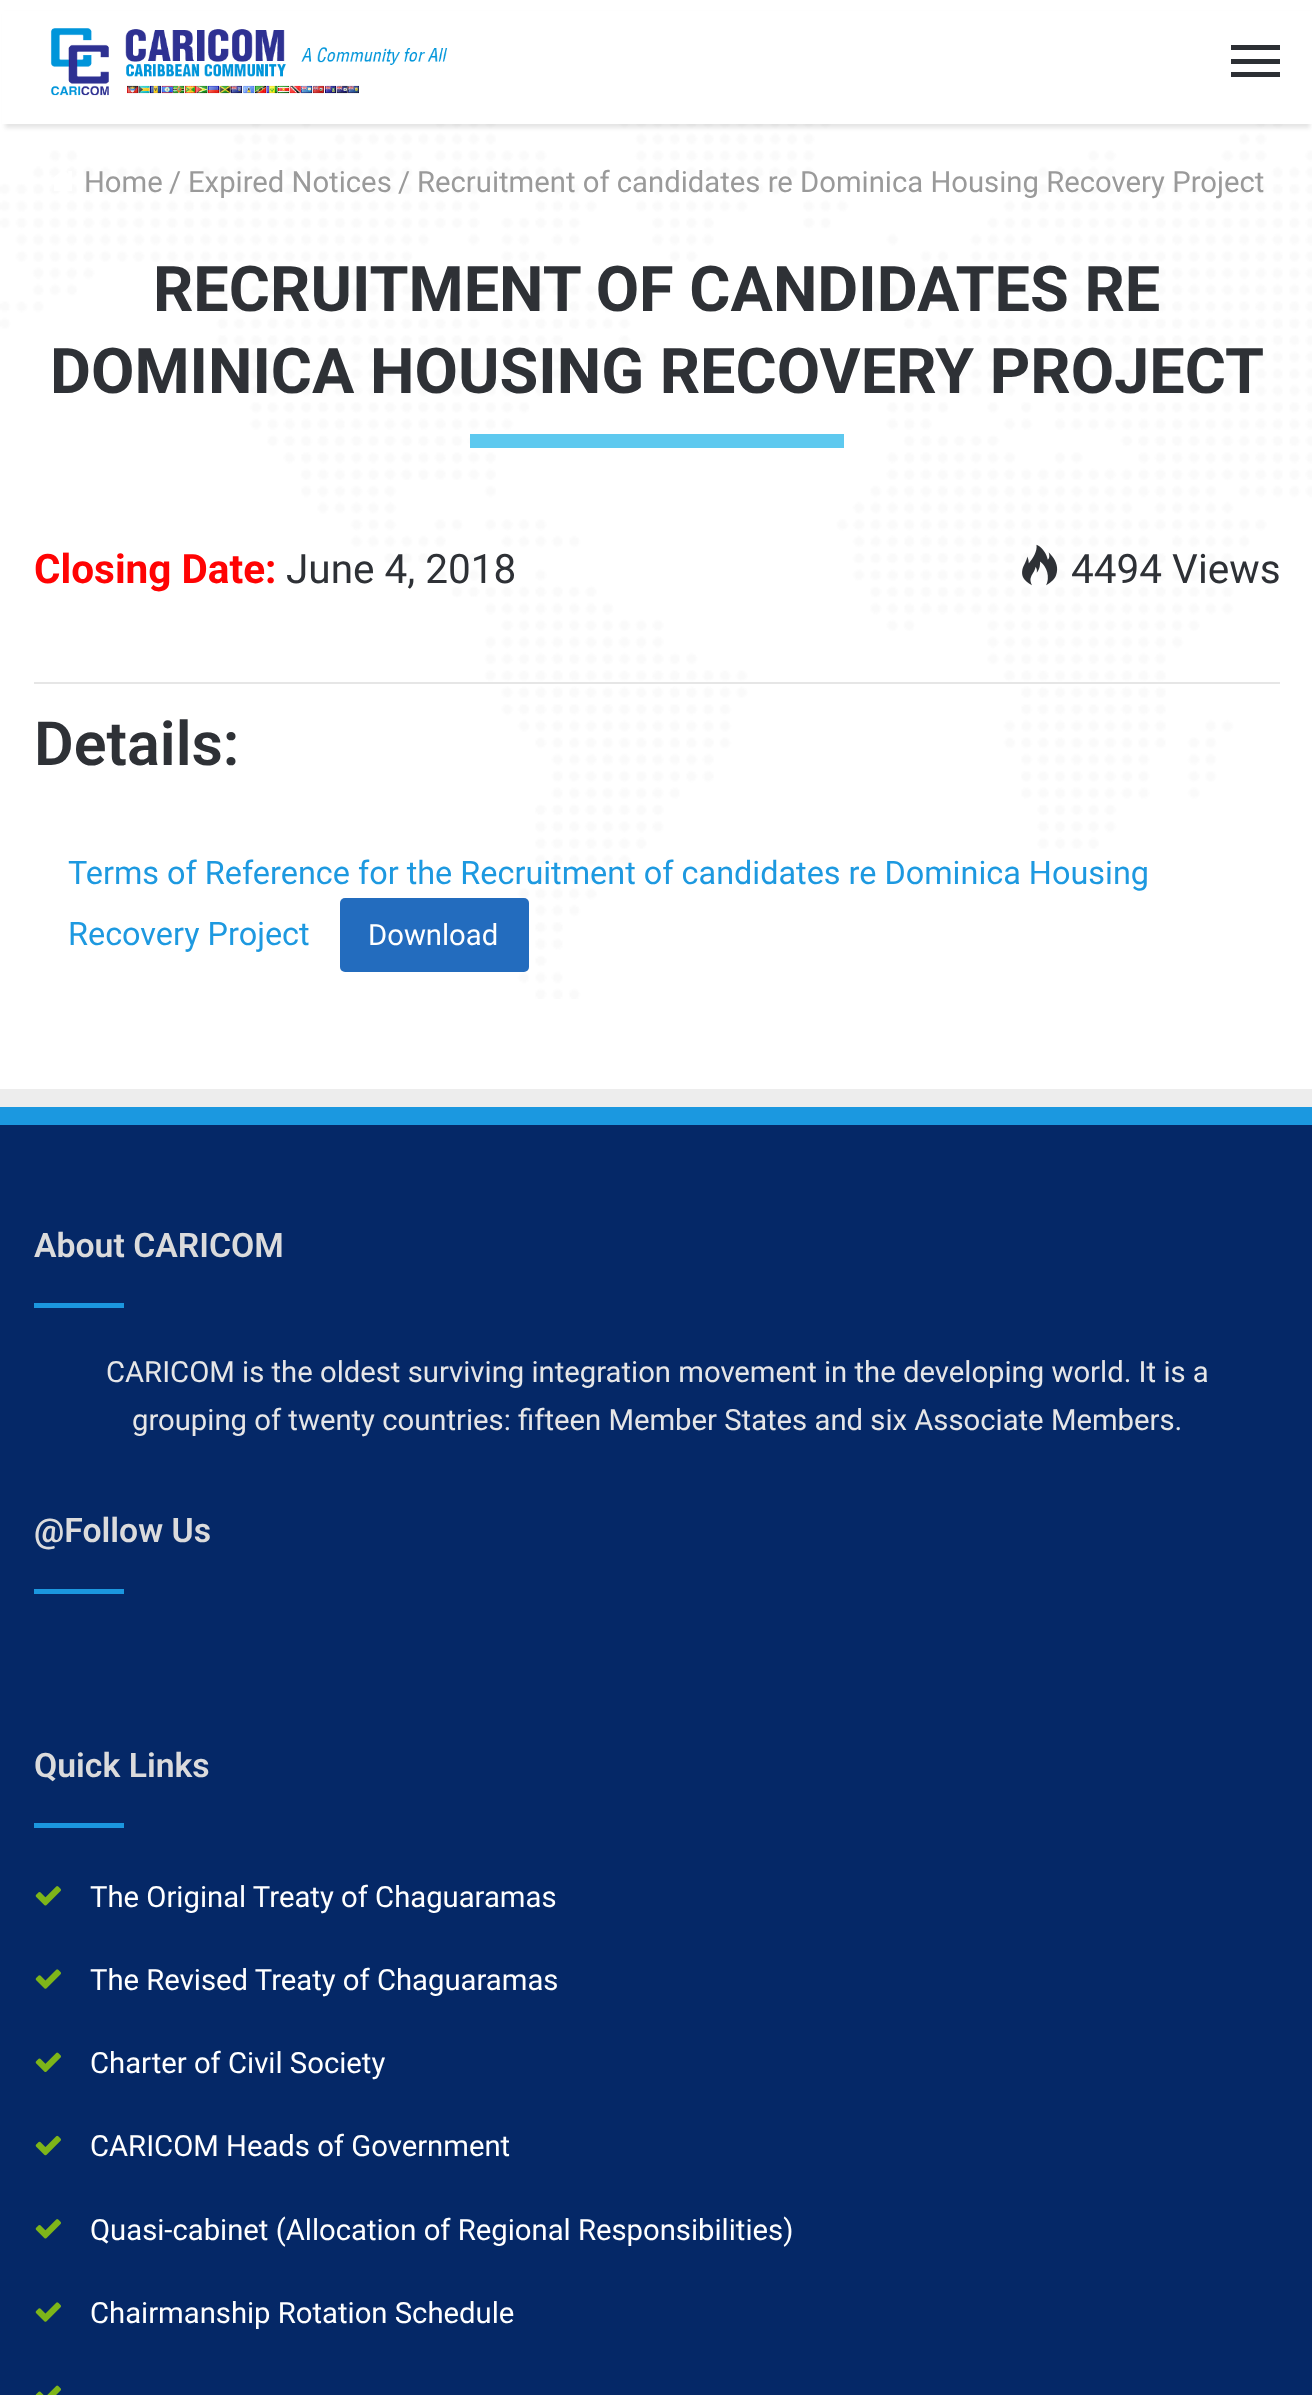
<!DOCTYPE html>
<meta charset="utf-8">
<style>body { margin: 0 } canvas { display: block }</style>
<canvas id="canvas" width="1312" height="2395"></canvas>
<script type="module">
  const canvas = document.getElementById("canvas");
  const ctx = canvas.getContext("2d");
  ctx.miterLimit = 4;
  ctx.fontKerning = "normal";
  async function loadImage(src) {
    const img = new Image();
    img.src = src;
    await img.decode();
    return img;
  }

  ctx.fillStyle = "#ffffff";
  ctx.fillRect(0, 0, 1312, 2395);
  ctx.drawImage(await loadImage("img1.png"), 0, 124, 1312, 875);
  ctx.fillStyle = "rgba(0, 0, 0, 0.1)";
  ctx.filter = "blur(2px)";
  ctx.beginPath();
  ctx.rect(5, 14, 1305, 114);
  ctx.fill();
  ctx.filter = "none";
  ctx.fillStyle = "#ffffff";
  ctx.fillRect(2, 11, 1310, 113);
  ctx.drawImage(await loadImage("img2.png"), 50, 28, 398, 68);
  ctx.fillStyle = "#2c2f34";
  ctx.fillRect(1231, 59, 49, 5);
  ctx.fillRect(1231, 45, 49, 5);
  ctx.fillRect(1231, 72, 49, 5);
  ctx.drawImage(await loadImage("img3.png"), 54, 171, 18, 20);
  ctx.font = "29.25px Roboto";
  ctx.fillStyle = "#9a9a9a";
  ctx.fillText("Home", 84, 192);
  ctx.fillText("/", 169, 192);
  ctx.fillText("Expired Notices", 188, 192);
  ctx.fillText("/", 398, 192);
  ctx.fillText("Recruitment of candidates re Dominica Housing Recovery Project", 417, 192);
  ctx.font = "bold 63px Roboto";
  ctx.fillStyle = "#2e3136";
  ctx.fillText("RECRUITMENT OF CANDIDATES RE", 153, 311);
  ctx.fillText("DOMINICA HOUSING RECOVERY PROJECT", 50, 393);
  ctx.fillStyle = "rgba(92, 200, 239, 0.99)";
  ctx.fillRect(470, 434, 374, 14);
  ctx.font = "bold 40.5px Roboto";
  ctx.fillStyle = "#ff0303";
  ctx.fillText("Closing Date:", 34, 583);
  ctx.font = "40.5px Roboto";
  ctx.fillStyle = "#2e3136";
  ctx.fillText("June 4, 2018", 286, 583);
  ctx.drawImage(await loadImage("img4.png"), 1022, 544, 36, 42);
  ctx.fillText("4494 Views", 1071, 583);
  ctx.fillStyle = "#e6e6e6";
  ctx.fillRect(34, 682, 1246, 2);
  ctx.font = "600 61px Roboto";
  ctx.fillStyle = "#2e3136";
  ctx.fillText("Details:", 34, 765);
  ctx.font = "32.4px Roboto";
  ctx.fillStyle = "#1d99e0";
  ctx.fillText("Terms of Reference for the Recruitment of candidates re Dominica Housing", 68, 884);
  ctx.fillText("Recovery Project", 68, 945);
  ctx.fillStyle = "rgba(32, 106, 189, 0.99)";
  ctx.beginPath();
  ctx.roundRect(340, 898, 189, 74, 5);
  ctx.fill();
  ctx.font = "29.25px Roboto";
  ctx.fillStyle = "#ffffff";
  ctx.fillText("Download", 368, 945);
  ctx.fillStyle = "#052867";
  ctx.fillRect(0, 1125, 1312, 1270);
  ctx.fillStyle = "#ededed";
  ctx.fillRect(0, 1089, 1312, 18);
  ctx.fillStyle = "#1b98e0";
  ctx.fillRect(0, 1107, 1312, 18);
  ctx.font = "600 33.75px Roboto";
  ctx.fillStyle = "#dbdbdc";
  ctx.fillText("About CARICOM", 34, 1257);
  ctx.fillStyle = "#1b97df";
  ctx.fillRect(34, 1303, 90, 5);
  ctx.font = "29.25px Roboto";
  ctx.fillStyle = "#e6e6e7";
  ctx.fillText("CARICOM is the oldest surviving integration movement in the developing world. It is a", 106, 1382);
  ctx.fillText("grouping of twenty countries: fifteen Member States and six Associate Members.", 132, 1430);
  ctx.font = "600 33.75px Roboto";
  ctx.fillStyle = "#dbdbdc";
  ctx.fillText("@Follow Us", 34, 1542);
  ctx.fillStyle = "#1b97df";
  ctx.fillRect(34, 1589, 90, 5);
  ctx.fillStyle = "#dbdbdc";
  ctx.fillText("Quick Links", 34, 1777);
  ctx.fillStyle = "#1b97df";
  ctx.fillRect(34, 1823, 90, 5);
  ctx.drawImage(await loadImage("img5.png"), 35, 1886, 26, 20);
  ctx.font = "29.25px Roboto";
  ctx.fillStyle = "#ffffff";
  ctx.fillText("The Original Treaty of Chaguaramas", 90, 1907);
  ctx.drawImage(await loadImage("img6.png"), 35, 1969, 26, 20);
  ctx.fillText("The Revised Treaty of Chaguaramas", 90, 1990);
  ctx.drawImage(await loadImage("img7.png"), 35, 2052, 26, 20);
  ctx.fillText("Charter of Civil Society", 90, 2073);
  ctx.drawImage(await loadImage("img8.png"), 35, 2135, 26, 21);
  ctx.fillText("CARICOM Heads of Government", 90, 2156);
  ctx.drawImage(await loadImage("img5.png"), 35, 2219, 26, 20);
  ctx.fillText("Quasi-cabinet (Allocation of Regional Responsibilities)", 90, 2240);
  ctx.drawImage(await loadImage("img6.png"), 35, 2302, 26, 20);
  ctx.fillText("Chairmanship Rotation Schedule", 90, 2323);
  ctx.drawImage(await loadImage("img9.png"), 35, 2385, 26, 10);
</script>
